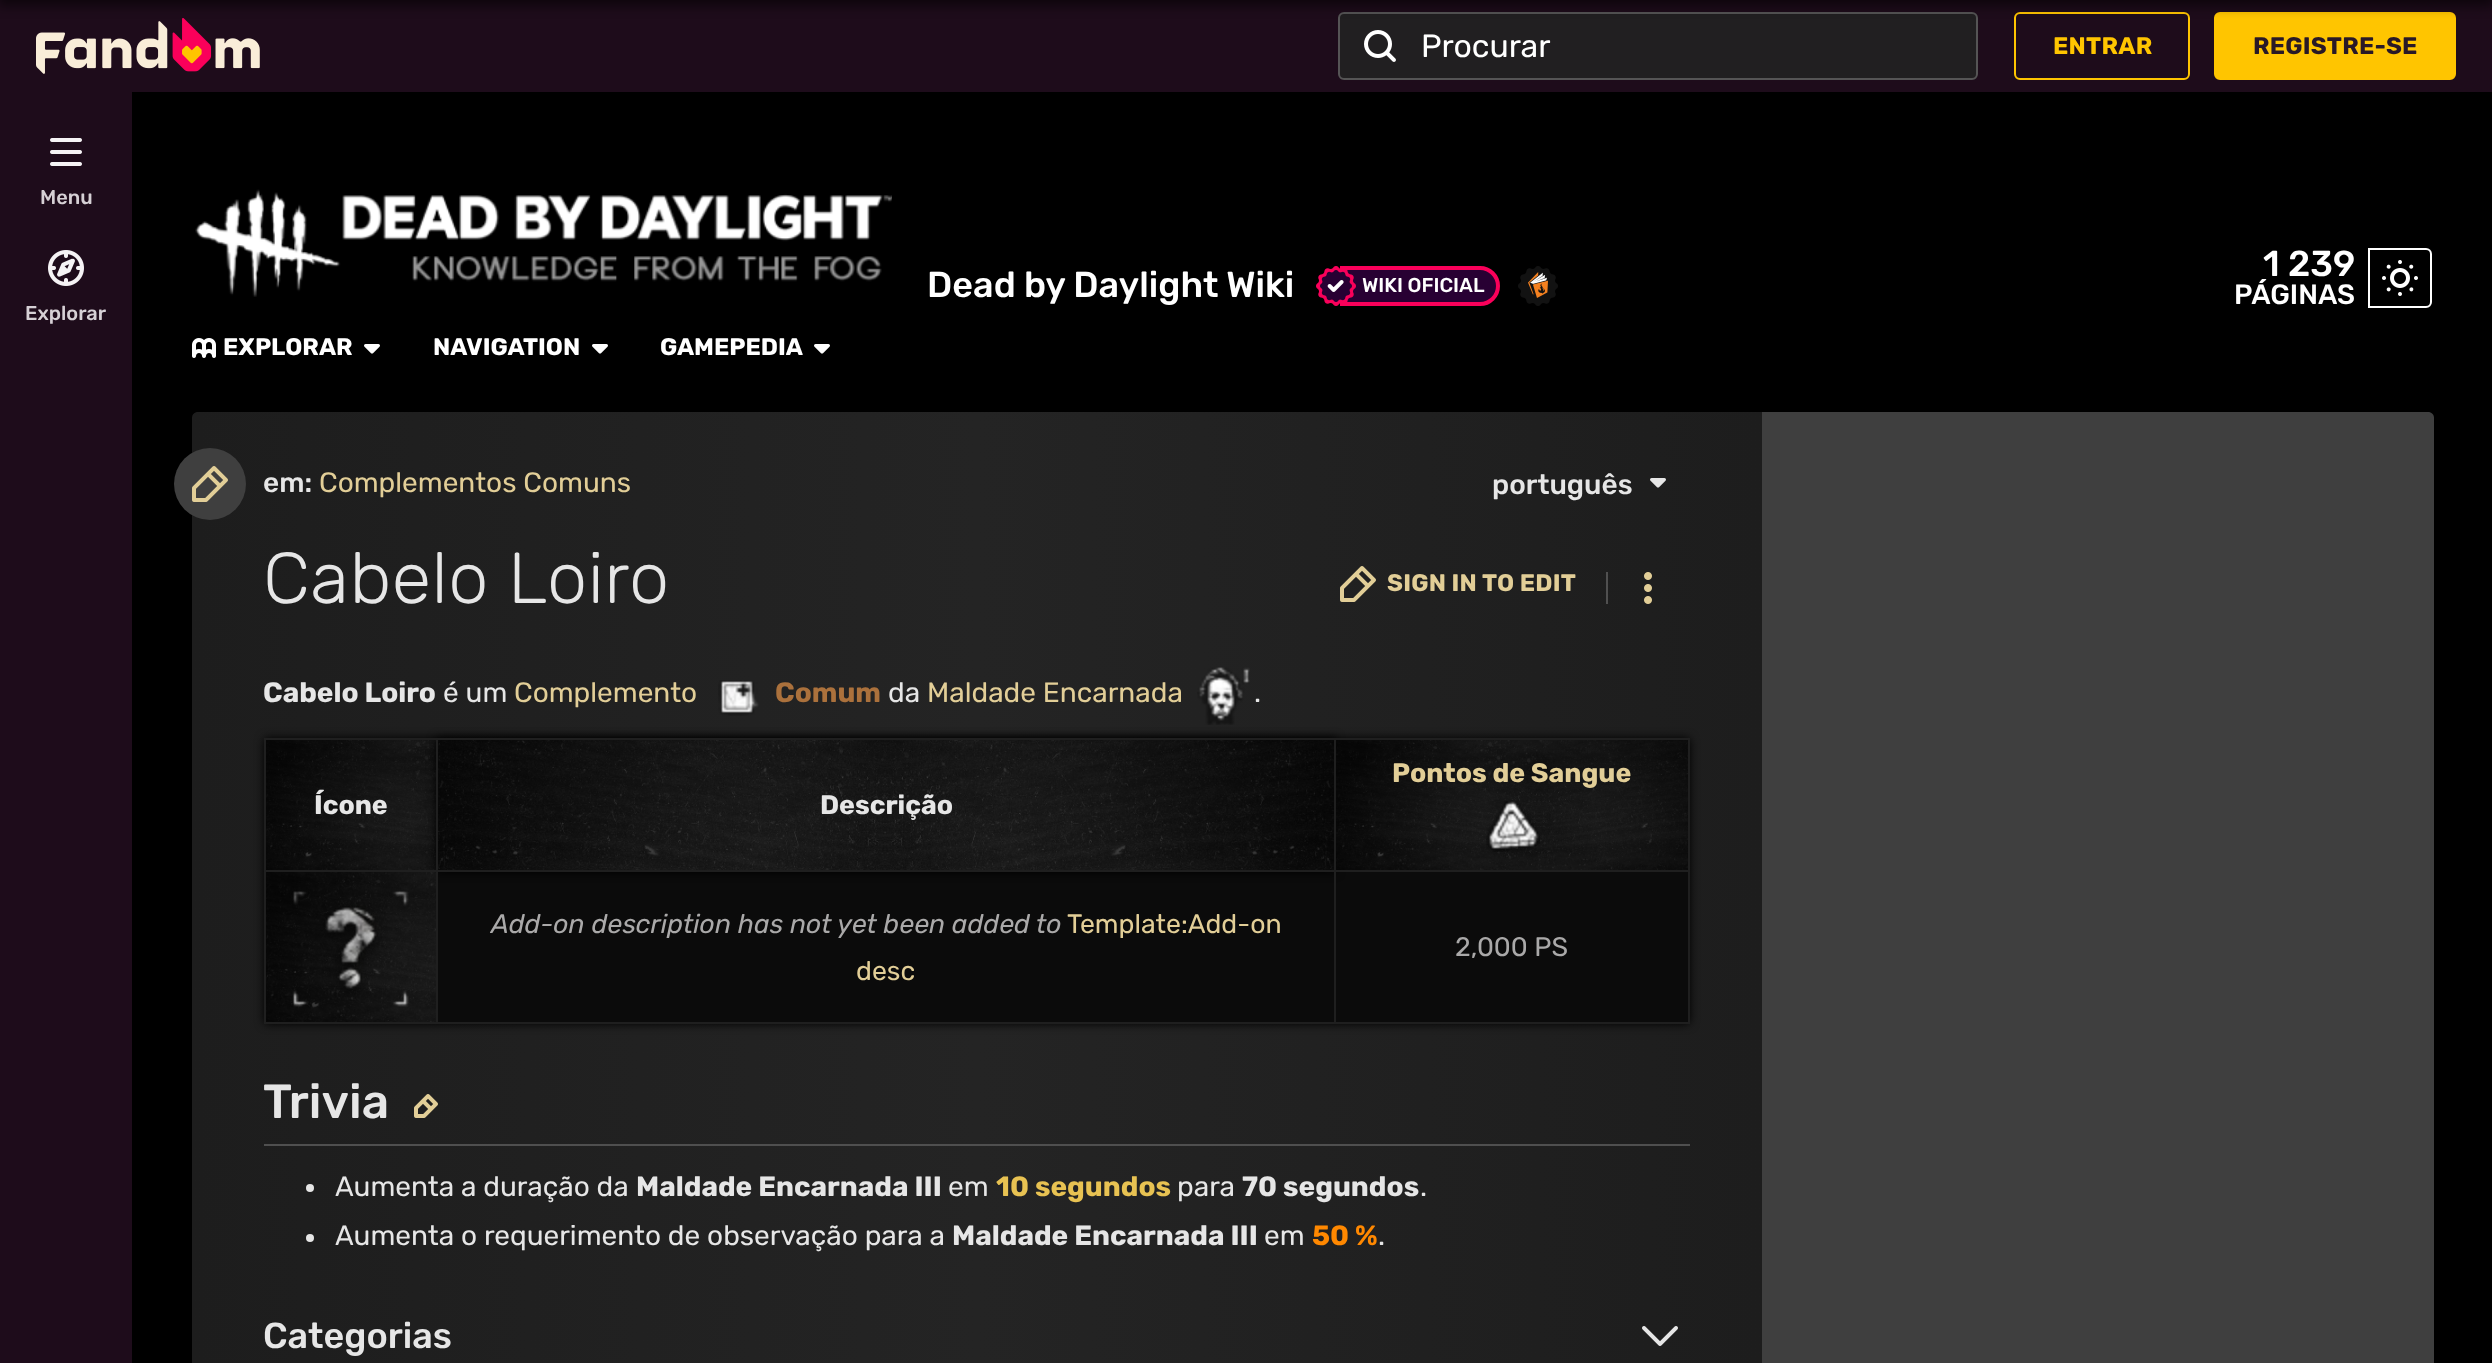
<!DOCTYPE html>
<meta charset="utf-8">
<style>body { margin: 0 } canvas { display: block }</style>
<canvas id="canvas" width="2492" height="1363"></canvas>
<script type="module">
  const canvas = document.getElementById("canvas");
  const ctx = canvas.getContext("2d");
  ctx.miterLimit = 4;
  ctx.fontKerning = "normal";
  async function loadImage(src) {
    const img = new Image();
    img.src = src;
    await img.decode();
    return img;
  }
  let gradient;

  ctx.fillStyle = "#000000";
  ctx.fillRect(0, 0, 2492, 1363);
  ctx.fillStyle = "#1e0c1b";
  ctx.fillRect(0, 0, 2492, 92);
  ctx.drawImage(await loadImage("img1.png"), 36, 18, 224, 56);
  ctx.fillStyle = "#211f21";
  ctx.beginPath();
  ctx.roundRect(1338, 12, 640, 68, 6);
  ctx.fill();
  ctx.beginPath();
  ctx.roundRect(1339, 13, 638, 66, 5);
  ctx.strokeStyle = "rgba(245, 243, 245, 0.25)";
  ctx.lineWidth = 2;
  ctx.stroke();
  ctx.beginPath();
  ctx.roundRect(2015, 13, 174, 66, 5);
  ctx.strokeStyle = "#ffc500";
  ctx.stroke();
  ctx.fillStyle = "#ffc500";
  ctx.beginPath();
  ctx.roundRect(2215, 13, 240, 66, 5);
  ctx.fill();
  ctx.stroke();
  ctx.fillStyle = "rgba(0, 0, 0, 0.55)";
  ctx.filter = "blur(6px)";
  ctx.beginPath();
  ctx.rect(-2, -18, 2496, 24);
  ctx.fill();
  ctx.filter = "none";
  ctx.drawImage(await loadImage("img2.png"), 1364, 30, 32, 32);
  ctx.font = "32px Rubik";
  ctx.fillStyle = "#ffffff";
  ctx.fillText("Procurar", 1421, 57);
  ctx.letterSpacing = "0.25px";
  ctx.font = "bold 24px Rubik";
  ctx.fillStyle = "#ffc500";
  ctx.fillText("ENTRAR", 2053, 54);
  ctx.fillStyle = "#291927";
  ctx.fillText("REGISTRE-SE", 2253, 54);
  ctx.fillStyle = "#1e0c1b";
  ctx.fillRect(0, 92, 132, 1271);
  ctx.drawImage(await loadImage("img3.png"), 50, 138, 32, 28);
  ctx.letterSpacing = "0px";
  ctx.font = "500 20px Rubik";
  ctx.fillStyle = "#d6d0d5";
  ctx.fillText("Menu", 40, 204);
  ctx.drawImage(await loadImage("img4.png"), 48, 250, 36, 36);
  ctx.fillText("Explorar", 25, 320);
  ctx.drawImage(await loadImage("img5.png"), 195, 189, 697, 108);
  ctx.font = "500 36px Rubik";
  ctx.fillStyle = "#ffffff";
  ctx.fillText("Dead by Daylight Wiki", 927, 297);
  ctx.fillStyle = "#280033";
  ctx.beginPath();
  ctx.roundRect(1342, 268, 156, 36, [0, 18, 18, 0]);
  ctx.fill();
  ctx.strokeStyle = "#fa005a";
  ctx.lineWidth = 4;
  ctx.stroke();
  ctx.drawImage(await loadImage("img6.png"), 1316, 266, 40, 40);
  ctx.font = "500 20px Rubik";
  ctx.fillStyle = "#ffffff";
  ctx.fillText("WIKI OFICIAL", 1362, 292);
  ctx.drawImage(await loadImage("img7.png"), 1518, 266, 40, 40);
  ctx.font = "500 36px Rubik";
  ctx.fillText("1 239", 2263, 276);
  ctx.font = "500 28px Rubik";
  ctx.fillText("PÁGINAS", 2234, 304);
  ctx.beginPath();
  ctx.roundRect(2369, 249, 62, 58, [0, 5, 5, 0]);
  ctx.strokeStyle = "#ffffff";
  ctx.lineWidth = 2;
  ctx.stroke();
  ctx.drawImage(await loadImage("img8.png"), 2382, 260, 36, 36);
  ctx.drawImage(await loadImage("img9.png"), 192, 338, 24, 20);
  ctx.font = "bold 24px Rubik";
  ctx.fillText("EXPLORAR", 223, 355);
  ctx.drawImage(await loadImage("img10.png"), 364, 344, 16, 10);
  ctx.fillText("NAVIGATION", 433, 355);
  ctx.drawImage(await loadImage("img10.png"), 592, 344, 16, 10);
  ctx.fillText("GAMEPEDIA", 660, 355);
  ctx.drawImage(await loadImage("img10.png"), 814, 344, 16, 10);
  gradient = ctx.createLinearGradient(192, 1049, 1762, 1049);
  gradient.addColorStop(0, "#1d1d1d");
  gradient.addColorStop(0.5, "#242424");
  gradient.addColorStop(1, "#1d1d1d");
  ctx.fillStyle = gradient;
  ctx.beginPath();
  ctx.moveTo(198, 412);
  ctx.lineTo(1762, 412);
  ctx.lineTo(1762, 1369);
  ctx.lineTo(198, 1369);
  ctx.bezierCurveTo(194.5, 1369, 192, 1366.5, 192, 1363);
  ctx.lineTo(192, 418);
  ctx.bezierCurveTo(192, 414.5, 194.5, 412, 198, 412);
  ctx.closePath();
  ctx.fill();
  ctx.fillStyle = "#3f3f3f";
  ctx.beginPath();
  ctx.arc(210, 484, 36, 0, Math.PI * 2);
  ctx.fill();
  ctx.drawImage(await loadImage("img11.png"), 192, 466, 36, 36);
  ctx.font = "500 28px Rubik";
  ctx.fillStyle = "#e6e6e6";
  ctx.fillText("em:", 263, 492);
  ctx.font = "28px Rubik";
  ctx.fillStyle = "#e2ce97";
  ctx.fillText("Complementos Comuns", 319, 492);
  ctx.font = "500 28px Rubik";
  ctx.fillStyle = "#e6e6e6";
  ctx.fillText("português", 1492, 494);
  ctx.drawImage(await loadImage("img12.png"), 1650, 478, 16, 10);
  ctx.letterSpacing = "0.5px";
  ctx.font = "300 72px Rubik";
  ctx.fillText("Cabelo Loiro", 263, 603);
  ctx.drawImage(await loadImage("img13.png"), 1340, 566, 36, 36);
  ctx.letterSpacing = "0.25px";
  ctx.font = "bold 24px Rubik";
  ctx.fillStyle = "#e2ce97";
  ctx.fillText("SIGN IN TO EDIT", 1387, 591);
  ctx.fillStyle = "#505050";
  ctx.fillRect(1606, 572, 2, 32);
  ctx.drawImage(await loadImage("img14.png"), 1644, 572, 8, 32);
  ctx.letterSpacing = "0px";
  ctx.font = "bold 28px Rubik";
  ctx.fillStyle = "#e6e6e6";
  ctx.fillText("Cabelo Loiro", 263, 702);
  ctx.font = "28px Rubik";
  ctx.fillText("é um", 443, 702);
  ctx.fillStyle = "#e2ce97";
  ctx.fillText("Complemento", 514, 702);
  ctx.drawImage(await loadImage("img15.png"), 718, 680, 41, 36);
  ctx.font = "bold 28px Rubik";
  ctx.fillStyle = "#ab713c";
  ctx.fillText("Comum", 775, 702);
  ctx.font = "28px Rubik";
  ctx.fillStyle = "#e6e6e6";
  ctx.fillText("da", 888, 702);
  ctx.fillStyle = "#e2ce97";
  ctx.fillText("Maldade Encarnada", 927, 702);
  ctx.fillStyle = "#000000";
  ctx.filter = "blur(5px)";
  ctx.beginPath();
  ctx.roundRect(264, 738, 1426, 286, 4);
  ctx.fill();
  ctx.filter = "none";
  ctx.fillStyle = "#0b0b0b";
  ctx.fillRect(438, 872, 1250, 150);
  ctx.drawImage(await loadImage("img19.png"), 266, 740, 170, 130);
  ctx.fillStyle = "#000000";
  ctx.filter = "blur(5px)";
  ctx.beginPath();
  ctx.rect(436, 738, 900, 134);
  ctx.fill();
  ctx.filter = "none";
  ctx.drawImage(await loadImage("img16.png"), 1197, 667, 53, 58);
  ctx.fillStyle = "#e6e6e6";
  ctx.fillText(".", 1254, 702);
  ctx.fillStyle = "#1f1f1f";
  ctx.fillRect(264, 738, 1426, 2);
  ctx.fillRect(1688, 738, 2, 286);
  ctx.fillRect(264, 1022, 1426, 2);
  ctx.fillRect(264, 738, 2, 286);
  ctx.drawImage(await loadImage("img17.png"), 1336, 740, 352, 130);
  ctx.fillRect(1334, 870, 356, 2);
  ctx.fillRect(1334, 870, 2, 154);
  ctx.fillRect(436, 870, 900, 2);
  ctx.fillRect(1334, 738, 2, 134);
  ctx.font = "bold 26.7px Rubik";
  ctx.fillStyle = "#e2ce97";
  ctx.fillText("Pontos de Sangue", 1392, 782);
  ctx.drawImage(await loadImage("img18.png"), 1486, 801, 54, 51);
  ctx.fillStyle = "#e6e6e6";
  ctx.fillText("Ícone", 314, 814);
  ctx.drawImage(await loadImage("img20.png"), 438, 740, 896, 130);
  ctx.fillStyle = "#1f1f1f";
  ctx.fillRect(436, 870, 2, 154);
  ctx.fillRect(264, 870, 174, 2);
  ctx.fillRect(436, 738, 2, 134);
  ctx.fillStyle = "#e6e6e6";
  ctx.fillText("Descrição", 820, 814);
  ctx.drawImage(await loadImage("img21.png"), 266, 872, 170, 150);
  ctx.drawImage(await loadImage("img22.png"), 292, 891, 117, 116);
  ctx.font = "italic 26.7px Rubik";
  ctx.fillStyle = "#aaa9a9";
  ctx.fillText("Add-on description has not yet been added to", 491, 933);
  ctx.font = "26.7px Rubik";
  ctx.fillStyle = "#e2ce97";
  ctx.fillText("Template:Add-on", 1067, 933);
  ctx.fillText("desc", 856, 980);
  ctx.fillStyle = "#aaa9a9";
  ctx.fillText("2,000 PS", 1455, 956);
  ctx.fillStyle = "#4f4f4f";
  ctx.fillRect(264, 1144, 1426, 2);
  ctx.font = "500 48px Rubik";
  ctx.fillStyle = "#e6e6e6";
  ctx.fillText("Trivia", 263, 1118);
  ctx.drawImage(await loadImage("img23.png"), 414, 1094, 24, 24);
  ctx.beginPath();
  ctx.arc(310, 1188, 4, 0, Math.PI * 2);
  ctx.fill();
  ctx.font = "28px Rubik";
  ctx.fillText("Aumenta a duração da", 335, 1196);
  ctx.font = "bold 28px Rubik";
  ctx.fillText("Maldade Encarnada III", 636, 1196);
  ctx.font = "28px Rubik";
  ctx.fillText("em", 948, 1196);
  ctx.font = "bold 28px Rubik";
  ctx.fillStyle = "#e8c252";
  ctx.fillText("10 segundos", 996, 1196);
  ctx.font = "28px Rubik";
  ctx.fillStyle = "#e6e6e6";
  ctx.fillText("para", 1177, 1196);
  ctx.font = "bold 28px Rubik";
  ctx.fillText("70 segundos", 1242, 1196);
  ctx.font = "28px Rubik";
  ctx.fillText(".", 1420, 1196);
  ctx.beginPath();
  ctx.arc(310, 1238, 4, 0, Math.PI * 2);
  ctx.fill();
  ctx.fillText("Aumenta o requerimento de observação para a", 335, 1245);
  ctx.font = "bold 28px Rubik";
  ctx.fillText("Maldade Encarnada III", 952, 1245);
  ctx.font = "28px Rubik";
  ctx.fillText("em", 1264, 1245);
  ctx.font = "bold 28px Rubik";
  ctx.fillStyle = "#ff8800";
  ctx.fillText("50 %", 1312, 1245);
  ctx.font = "28px Rubik";
  ctx.fillStyle = "#e6e6e6";
  ctx.fillText(".", 1378, 1245);
  ctx.font = "500 36px Rubik";
  ctx.fillText("Categorias", 263, 1348);
  ctx.drawImage(await loadImage("img24.png"), 1642, 1326, 36, 20);
  ctx.fillStyle = "#3f3f3f";
  ctx.beginPath();
  ctx.moveTo(1762, 412);
  ctx.lineTo(2428, 412);
  ctx.bezierCurveTo(2431.5, 412, 2434, 414.5, 2434, 418);
  ctx.lineTo(2434, 1363);
  ctx.bezierCurveTo(2434, 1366.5, 2431.5, 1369, 2428, 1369);
  ctx.lineTo(1762, 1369);
  ctx.closePath();
  ctx.fill();
</script>
